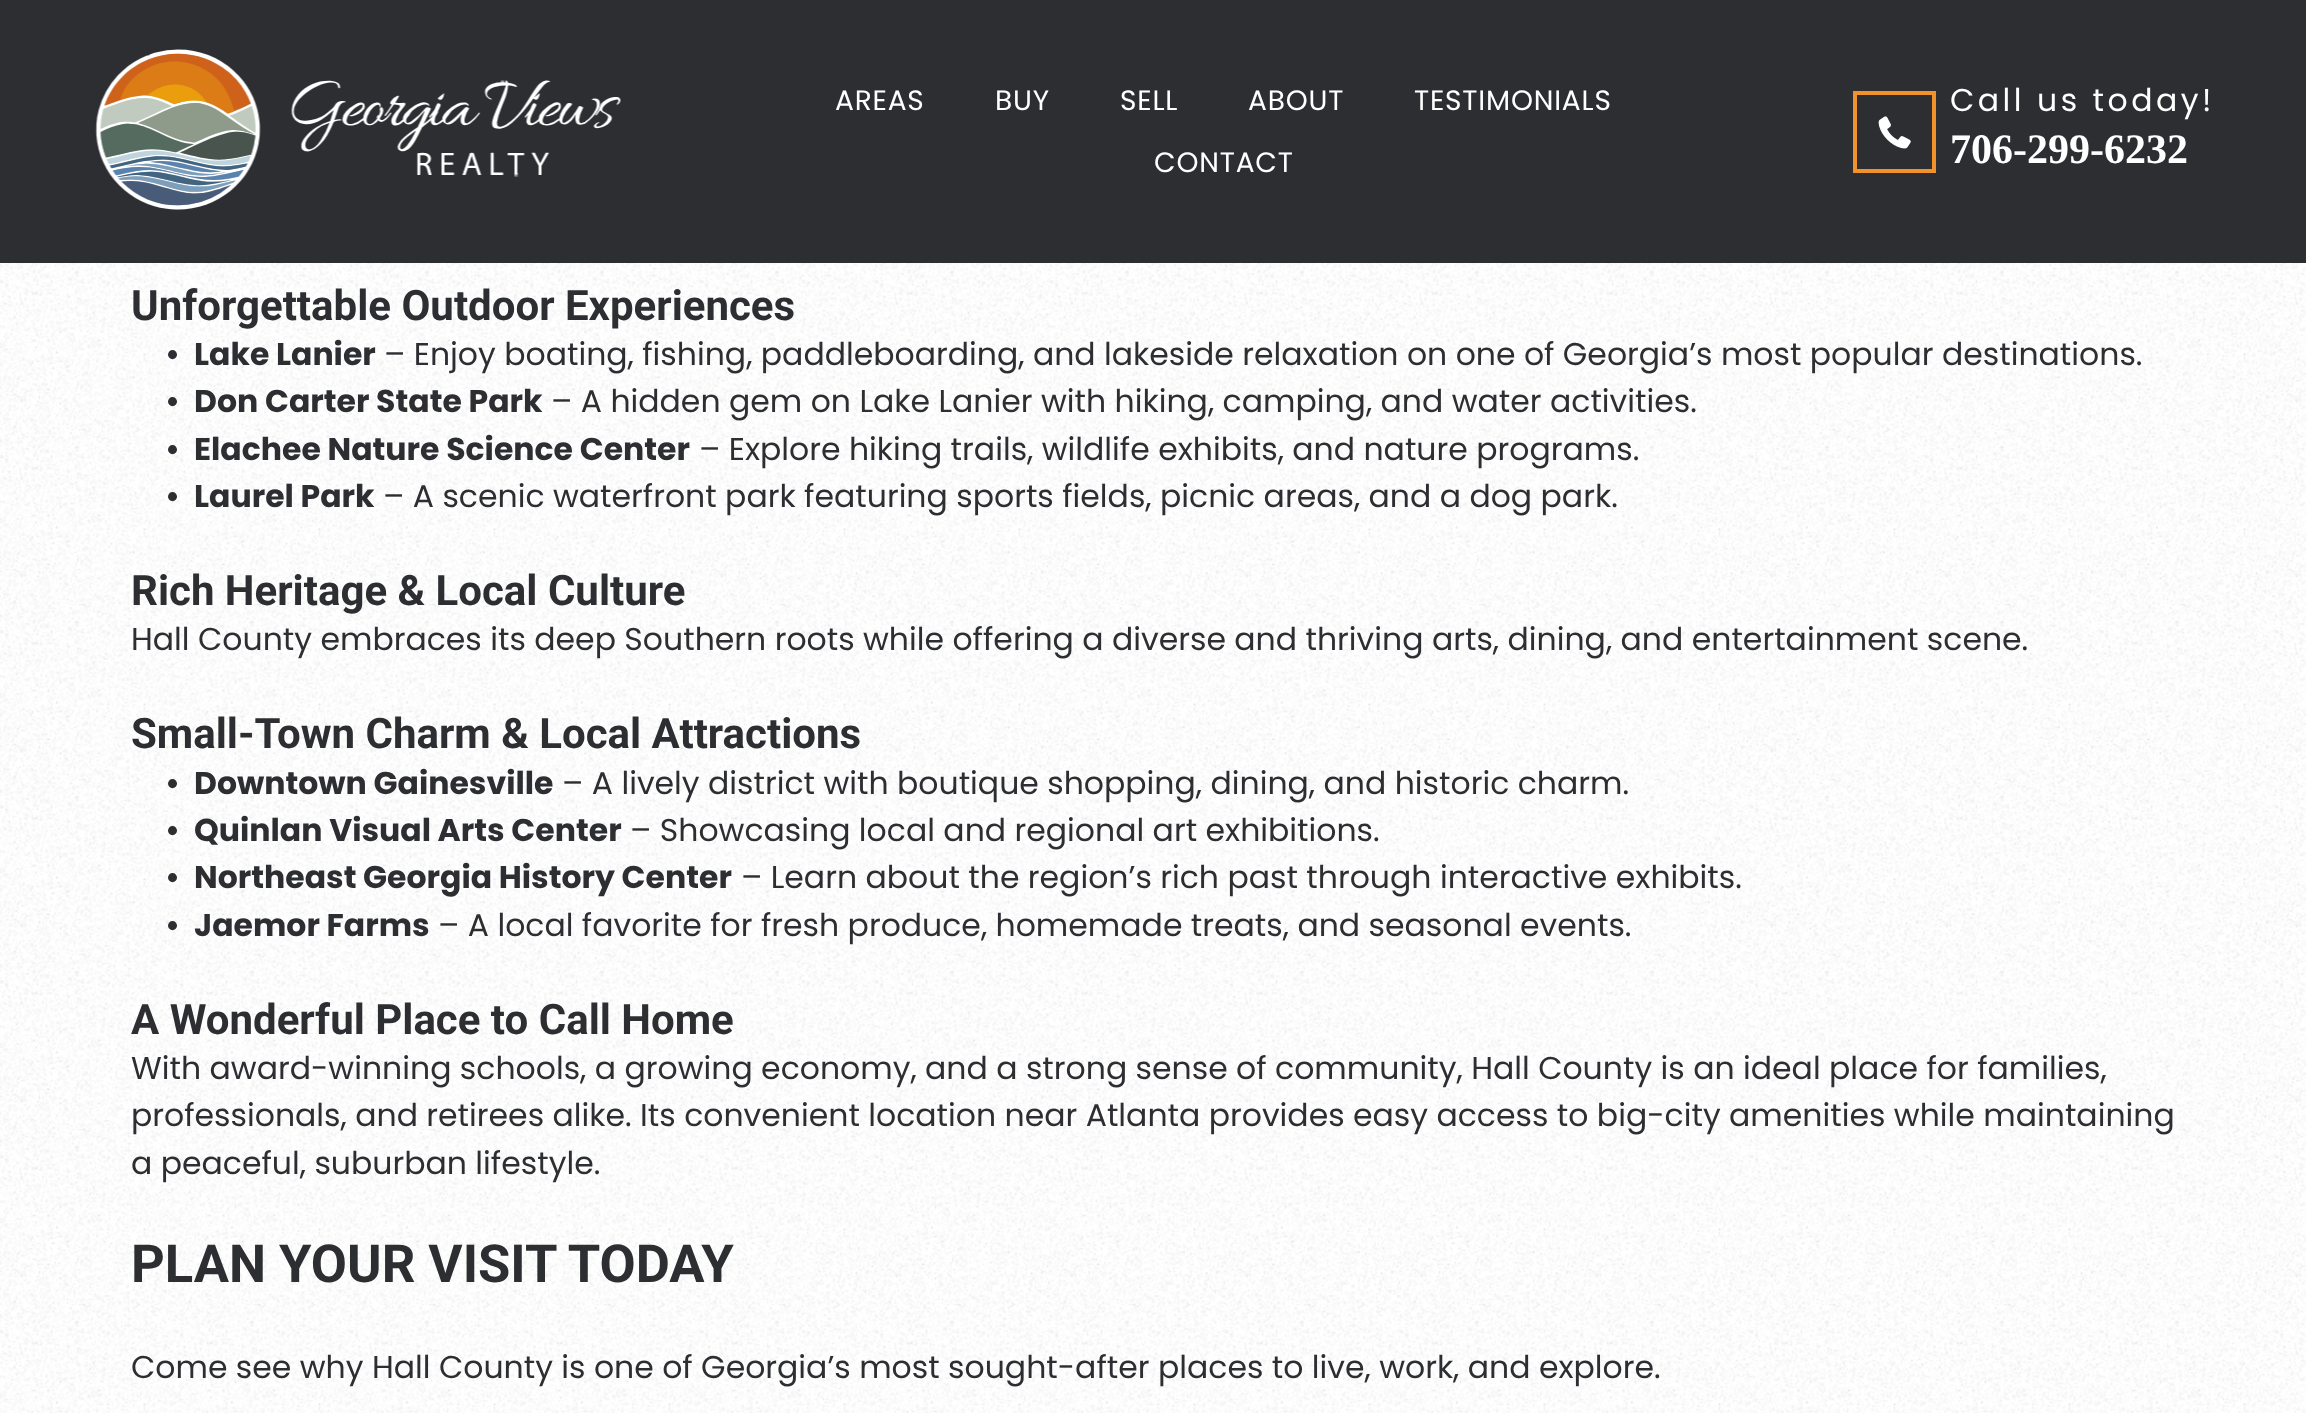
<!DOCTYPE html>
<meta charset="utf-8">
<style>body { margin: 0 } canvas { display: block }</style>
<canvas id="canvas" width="2306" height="1413"></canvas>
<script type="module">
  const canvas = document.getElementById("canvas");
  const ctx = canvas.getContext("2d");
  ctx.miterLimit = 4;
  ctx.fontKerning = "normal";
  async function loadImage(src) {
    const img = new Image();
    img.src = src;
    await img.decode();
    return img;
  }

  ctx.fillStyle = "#ffffff";
  ctx.fillRect(0, 0, 2306, 1413);
  ctx.fillStyle = "#2d2e32";
  ctx.fillRect(0, 0, 2306, 263);
  ctx.drawImage(await loadImage("img1.png"), 95, 49, 526, 161);
  ctx.letterSpacing = "0.8px";
  ctx.font = "28px Poppins";
  ctx.fillStyle = "#ffffff";
  ctx.fillText("AREAS", 835, 110);
  ctx.fillText("BUY", 995, 110);
  ctx.fillText("SELL", 1120, 110);
  ctx.fillText("ABOUT", 1248, 110);
  ctx.fillText("TESTIMONIALS", 1414, 110);
  ctx.fillText("CONTACT", 1154, 172);
  ctx.strokeStyle = "#f1922a";
  ctx.lineWidth = 4;
  ctx.strokeRect(1855, 93, 79, 78);
  ctx.drawImage(await loadImage("img2.png"), 1878, 116, 33, 33);
  ctx.letterSpacing = "3.5px";
  ctx.font = "31.5px Poppins";
  ctx.fillText("Call us today!", 1950, 111);
  ctx.letterSpacing = "0px";
  ctx.font = "bold 42px Liberation Serif";
  ctx.fillText("706-299-6232", 1950, 163);
  ctx.drawImage(await loadImage("img3.png"), 0, 263, 2306, 1150);
  ctx.font = "bold 42px Roboto";
  ctx.fillStyle = "#2d2e32";
  ctx.fillText("Unforgettable Outdoor Experiences", 131, 320);
  ctx.font = "bold 31.5px Liberation Sans";
  ctx.fillText("•", 167, 365);
  ctx.font = "bold 31.5px Poppins";
  ctx.fillText("Lake Lanier", 194, 365);
  ctx.font = "31.5px Poppins";
  ctx.fillText("– Enjoy boating, fishing, paddleboarding, and lakeside relaxation on one of Georgia’s most popular destinations.", 384, 365);
  ctx.font = "bold 31.5px Liberation Sans";
  ctx.fillText("•", 167, 412);
  ctx.font = "bold 31.5px Poppins";
  ctx.fillText("Don Carter State Park", 194, 412);
  ctx.font = "31.5px Poppins";
  ctx.fillText("– A hidden gem on Lake Lanier with hiking, camping, and water activities.", 551, 412);
  ctx.font = "bold 31.5px Liberation Sans";
  ctx.fillText("•", 167, 460);
  ctx.font = "bold 31.5px Poppins";
  ctx.fillText("Elachee Nature Science Center", 194, 460);
  ctx.font = "31.5px Poppins";
  ctx.fillText("– Explore hiking trails, wildlife exhibits, and nature programs.", 699, 460);
  ctx.font = "bold 31.5px Liberation Sans";
  ctx.fillText("•", 167, 507);
  ctx.font = "bold 31.5px Poppins";
  ctx.fillText("Laurel Park", 194, 507);
  ctx.font = "31.5px Poppins";
  ctx.fillText("– A scenic waterfront park featuring sports fields, picnic areas, and a dog park.", 383, 507);
  ctx.font = "bold 42px Roboto";
  ctx.fillText("Rich Heritage & Local Culture", 131, 605);
  ctx.font = "31.5px Poppins";
  ctx.fillText("Hall County embraces its deep Southern roots while offering a diverse and thriving arts, dining, and entertainment scene.", 131, 650);
  ctx.font = "bold 42px Roboto";
  ctx.fillText("Small-Town Charm & Local Attractions", 131, 748);
  ctx.font = "bold 31.5px Liberation Sans";
  ctx.fillText("•", 167, 794);
  ctx.font = "bold 31.5px Poppins";
  ctx.fillText("Downtown Gainesville", 194, 794);
  ctx.font = "31.5px Poppins";
  ctx.fillText("– A lively district with boutique shopping, dining, and historic charm.", 562, 794);
  ctx.font = "bold 31.5px Liberation Sans";
  ctx.fillText("•", 167, 841);
  ctx.font = "bold 31.5px Poppins";
  ctx.fillText("Quinlan Visual Arts Center", 194, 841);
  ctx.font = "31.5px Poppins";
  ctx.fillText("– Showcasing local and regional art exhibitions.", 630, 841);
  ctx.font = "bold 31.5px Liberation Sans";
  ctx.fillText("•", 167, 888);
  ctx.font = "bold 31.5px Poppins";
  ctx.fillText("Northeast Georgia History Center", 194, 888);
  ctx.font = "31.5px Poppins";
  ctx.fillText("– Learn about the region’s rich past through interactive exhibits.", 741, 888);
  ctx.font = "bold 31.5px Liberation Sans";
  ctx.fillText("•", 167, 936);
  ctx.font = "bold 31.5px Poppins";
  ctx.fillText("Jaemor Farms", 194, 936);
  ctx.font = "31.5px Poppins";
  ctx.fillText("– A local favorite for fresh produce, homemade treats, and seasonal events.", 438, 936);
  ctx.font = "bold 42px Roboto";
  ctx.fillText("A Wonderful Place to Call Home", 131, 1034);
  ctx.font = "31.5px Poppins";
  ctx.fillText("With award-winning schools, a growing economy, and a strong sense of community, Hall County is an ideal place for families,", 131, 1079);
  ctx.fillText("professionals, and retirees alike. Its convenient location near Atlanta provides easy access to big-city amenities while maintaining", 131, 1126);
  ctx.fillText("a peaceful, suburban lifestyle.", 131, 1174);
  ctx.font = "bold 52.5px Roboto";
  ctx.fillText("PLAN YOUR VISIT TODAY", 131, 1282);
  ctx.font = "31.5px Poppins";
  ctx.fillText("Come see why Hall County is one of Georgia’s most sought-after places to live, work, and explore.", 131, 1378);
</script>
